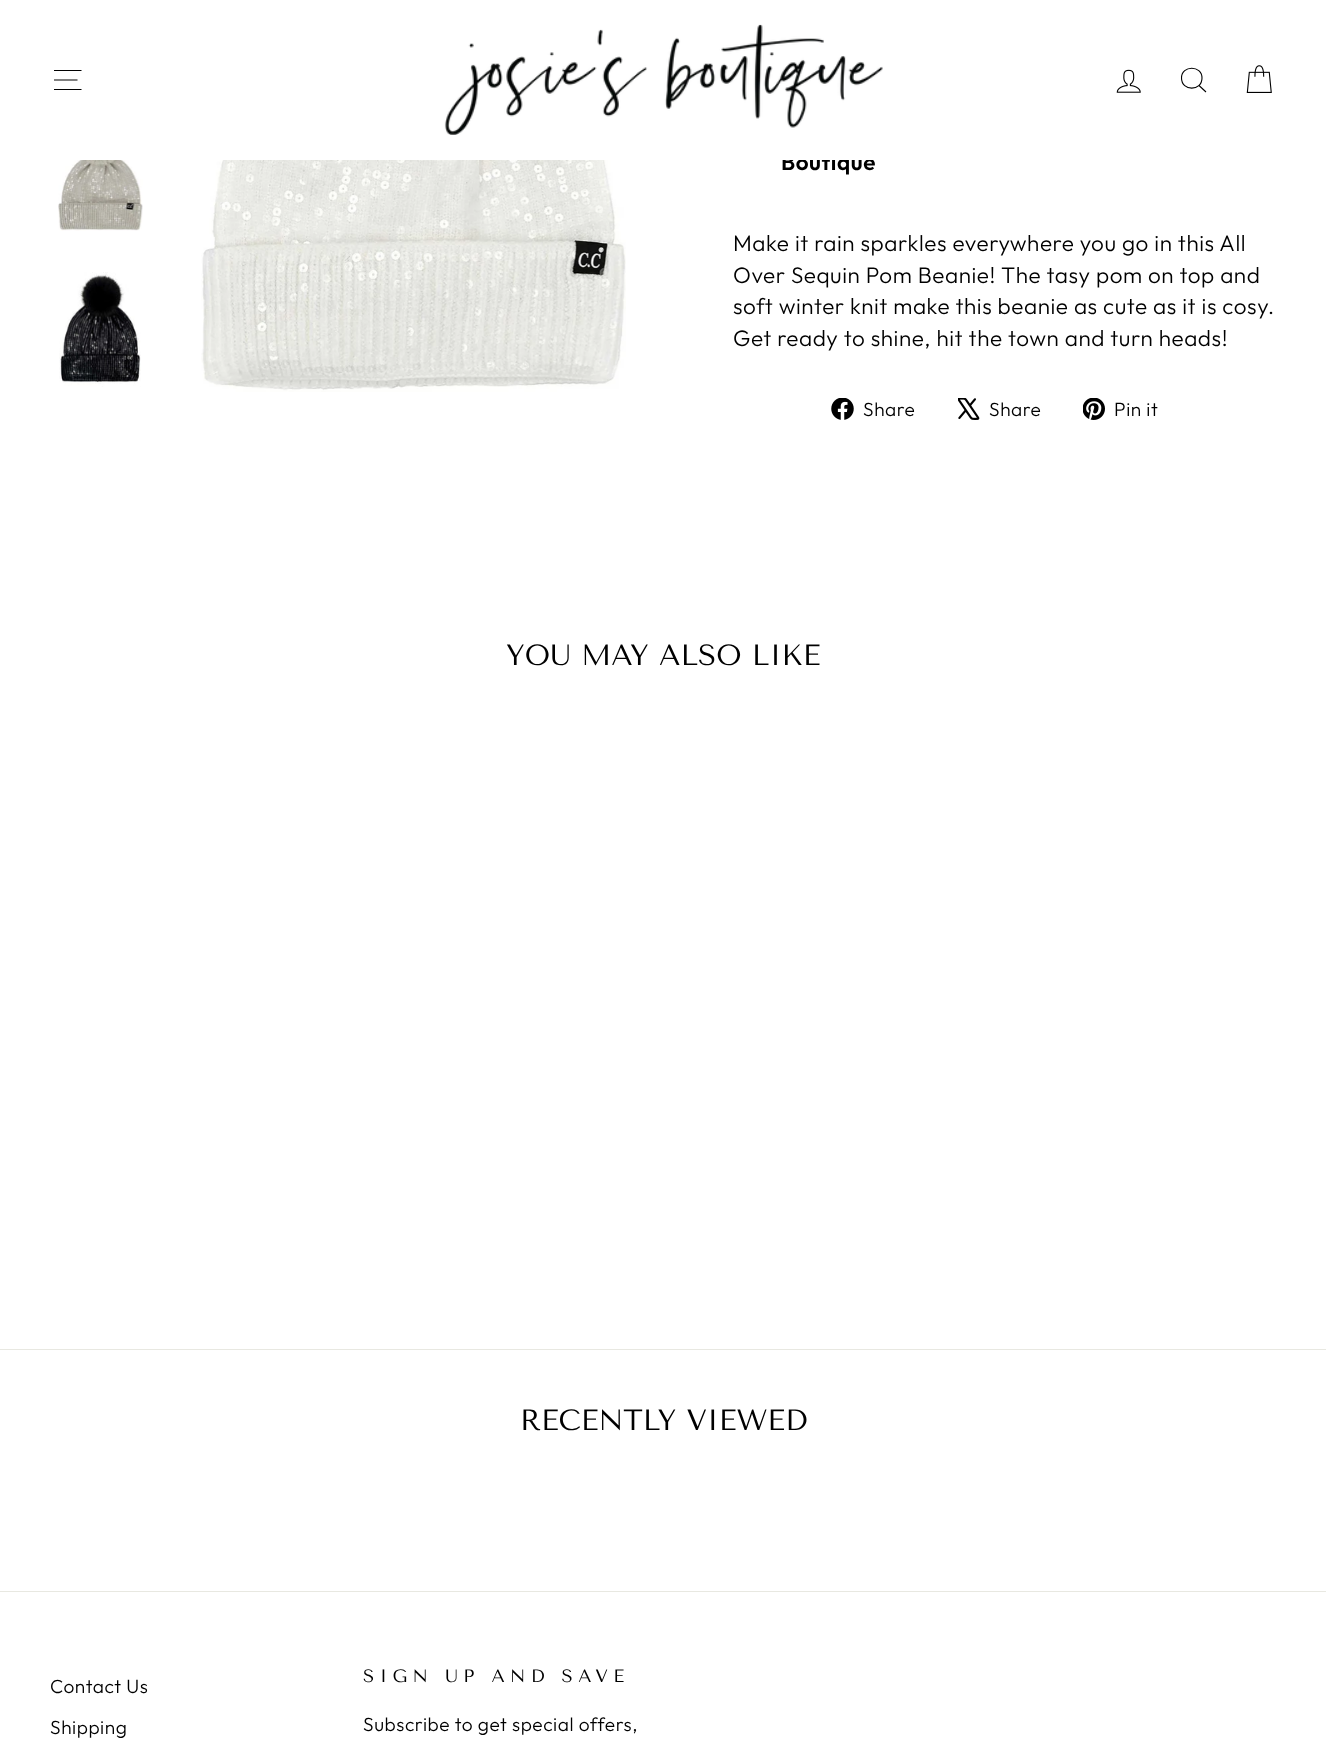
<!DOCTYPE html>
<meta charset="utf-8">
<style>body { margin: 0 } canvas { display: block }</style>
<canvas id="canvas" width="1326" height="1743"></canvas>
<script type="module">
  const canvas = document.getElementById("canvas");
  const ctx = canvas.getContext("2d");
  ctx.miterLimit = 4;
  ctx.fontKerning = "normal";
  async function loadImage(src) {
    const img = new Image();
    img.src = src;
    await img.decode();
    return img;
  }

  ctx.fillStyle = "#ffffff";
  ctx.fillRect(0, 0, 1326, 1743);
  ctx.drawImage(await loadImage("img4.png"), 58, 160, 85, 71);
  ctx.drawImage(await loadImage("img6.png"), 201, 160, 425, 232);
  ctx.fillStyle = "rgba(0, 0, 0, 0.2)";
  ctx.filter = "blur(0.5px)";
  ctx.beginPath();
  ctx.rect(0, 0, 1326, 160);
  ctx.fill();
  ctx.filter = "none";
  ctx.letterSpacing = "0.55px";
  ctx.font = "600 22.5px Outfit";
  ctx.fillStyle = "#000000";
  ctx.fillText("Boutique", 781, 170);
  ctx.fillStyle = "#ffffff";
  ctx.fillRect(0, 0, 1326, 160);
  ctx.beginPath();
  ctx.moveTo(54, 70.5);
  ctx.lineTo(81.5, 70.5);
  ctx.moveTo(54, 80);
  ctx.lineTo(77.5, 80);
  ctx.moveTo(54, 89.5);
  ctx.lineTo(81.5, 89.5);
  ctx.strokeStyle = "#000000";
  ctx.lineWidth = 1.1;
  ctx.stroke();
  ctx.drawImage(await loadImage("img1.png"), 444, 24, 439, 111);
  ctx.drawImage(await loadImage("img2.png"), 1116, 69, 25, 24);
  ctx.beginPath();
  ctx.moveTo(1202, 78);
  ctx.bezierCurveTo(1202, 91.5, 1181.5, 91.5, 1181.5, 78);
  ctx.bezierCurveTo(1181.5, 65, 1202, 65, 1202, 78);
  ctx.closePath();
  ctx.moveTo(1206, 92);
  ctx.lineTo(1199, 85.5);
  ctx.stroke();
  ctx.drawImage(await loadImage("img3.png"), 1246, 65, 26, 28);
  ctx.drawImage(await loadImage("img5.png"), 59, 272, 82, 115);
  ctx.font = "300 22.5px Outfit";
  ctx.fillStyle = "#000000";
  ctx.fillText("Make it rain sparkles everywhere you go in this All", 733, 251);
  ctx.fillText("Over Sequin Pom Beanie! The tasy pom on top and", 733, 283);
  ctx.fillText("soft winter knit make this beanie as cute as it is cosy.", 733, 314);
  ctx.fillText("Get ready to shine, hit the town and turn heads!", 733, 346);
  ctx.drawImage(await loadImage("img7.png"), 831, 398, 23, 22);
  ctx.font = "300 19.1px Outfit";
  ctx.fillText("Share", 863, 416);
  ctx.drawImage(await loadImage("img8.png"), 958, 398, 22, 22);
  ctx.fillText("Share", 989, 416);
  ctx.drawImage(await loadImage("img9.png"), 1083, 398, 22, 22);
  ctx.fillText("Pin it", 1114, 416);
  ctx.letterSpacing = "0px";
  ctx.font = "29.25px Tenor Sans";
  ctx.fillText("YOU MAY ALSO LIKE", 506, 665);
  ctx.fillStyle = "#e8e8e1";
  ctx.fillRect(0, 1349, 1326, 1);
  ctx.fillStyle = "#000000";
  ctx.fillText("RECENTLY VIEWED", 520, 1430);
  ctx.fillStyle = "#e8e8e1";
  ctx.fillRect(0, 1591, 1326, 1);
  ctx.letterSpacing = "0.55px";
  ctx.font = "300 19.1px Outfit";
  ctx.fillStyle = "#000000";
  ctx.fillText("Contact Us", 50, 1693);
  ctx.fillText("Shipping", 50, 1734);
  ctx.letterSpacing = "5.4px";
  ctx.font = "18px Tenor Sans";
  ctx.fillText("SIGN UP AND SAVE", 363, 1682);
  ctx.letterSpacing = "0.55px";
  ctx.font = "300 19.1px Outfit";
  ctx.fillText("Subscribe to get special offers,", 363, 1731);
</script>
